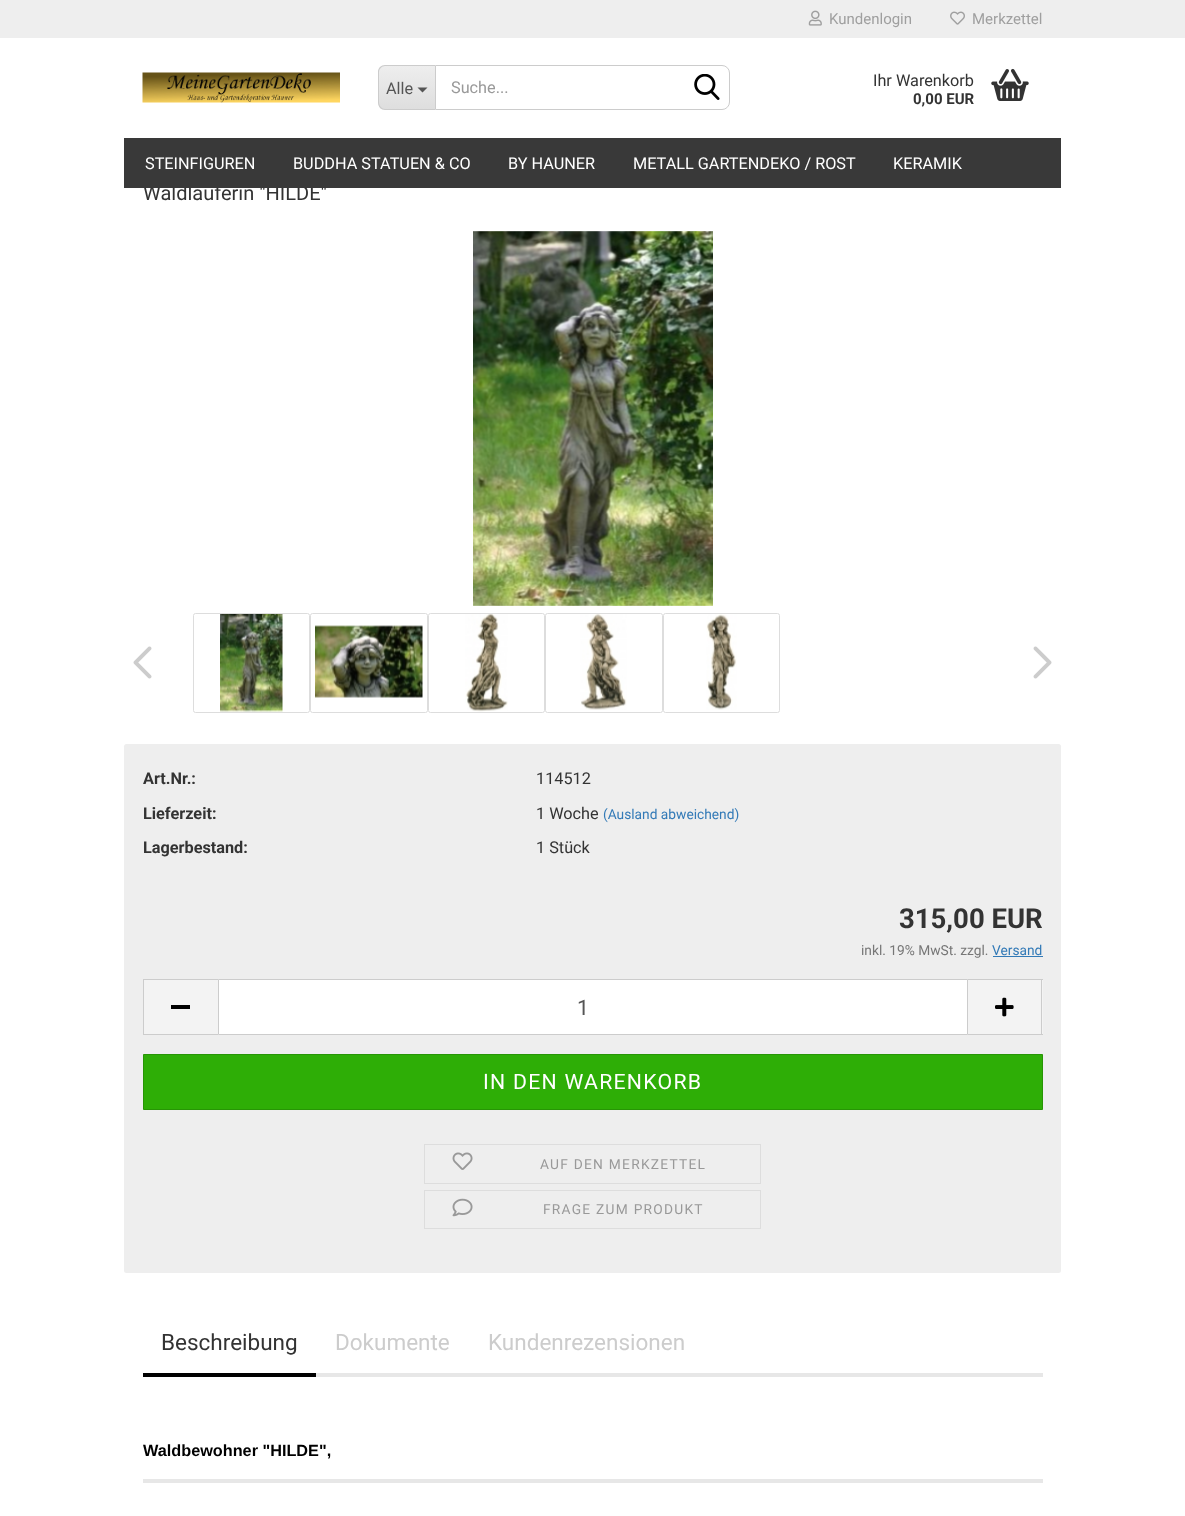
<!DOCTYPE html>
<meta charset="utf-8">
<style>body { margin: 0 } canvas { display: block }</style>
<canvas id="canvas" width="1185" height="1516"></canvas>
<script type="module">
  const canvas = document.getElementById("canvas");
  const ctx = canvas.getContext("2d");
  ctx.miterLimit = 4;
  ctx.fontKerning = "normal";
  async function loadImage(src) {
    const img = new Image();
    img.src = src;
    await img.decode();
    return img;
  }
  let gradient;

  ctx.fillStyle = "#ffffff";
  ctx.fillRect(0, 0, 1185, 1516);
  ctx.font = "20px Roboto";
  ctx.fillStyle = "#333333";
  ctx.fillText("Waldläuferin \"HILDE\"", 143, 200);
  ctx.fillStyle = "#ffffff";
  ctx.fillRect(143, 184, 183, 4);
  ctx.fillStyle = "#eeeeee";
  ctx.fillRect(0, 0, 1185, 38);
  ctx.drawImage(await loadImage("img1.png"), 808, 10, 14, 16);
  ctx.font = "15px Roboto";
  ctx.fillStyle = "#9f9f9f";
  ctx.fillText("Kundenlogin", 829, 24);
  ctx.drawImage(await loadImage("img2.png"), 950, 11, 15, 14);
  ctx.fillText("Merkzettel", 972, 24);
  ctx.drawImage(await loadImage("img3.png"), 142, 72, 198, 31);
  ctx.save();
  ctx.beginPath();
  ctx.roundRect(378, 65, 57, 45, [8, 0, 0, 8]);
  ctx.clip();
  gradient = ctx.createLinearGradient(407, 66, 407, 109);
  gradient.addColorStop(0, "#eeeeee");
  gradient.addColorStop(1, "#dedede");
  ctx.fillStyle = gradient;
  ctx.fillRect(378, 66, 57, 43);
  ctx.restore();
  ctx.fillStyle = "#cccccc";
  ctx.beginPath();
  ctx.moveTo(385, 65);
  ctx.lineTo(435, 65);
  ctx.lineTo(435, 110);
  ctx.lineTo(385, 110);
  ctx.bezierCurveTo(381, 110, 378, 107, 378, 102);
  ctx.lineTo(378, 72);
  ctx.bezierCurveTo(378, 68, 381, 65, 385, 65);
  ctx.closePath();
  ctx.moveTo(385, 66);
  ctx.lineTo(435, 66);
  ctx.lineTo(435, 109);
  ctx.lineTo(385, 109);
  ctx.bezierCurveTo(382, 109, 379, 106, 379, 102);
  ctx.lineTo(379, 72);
  ctx.bezierCurveTo(379, 69, 382, 66, 385, 66);
  ctx.closePath();
  ctx.fill("evenodd");
  ctx.font = "16.25px Roboto";
  ctx.fillStyle = "#555555";
  ctx.fillText("Alle", 386, 94);
  ctx.beginPath();
  ctx.moveTo(417.5, 87.5);
  ctx.lineTo(427.5, 87.5);
  ctx.lineTo(422.5, 92.5);
  ctx.closePath();
  ctx.fill();
  ctx.beginPath();
  ctx.roundRect(435.5, 65.5, 294, 44, [0, 7.5, 7.5, 0]);
  ctx.strokeStyle = "#cccccc";
  ctx.stroke();
  ctx.fillStyle = "#999999";
  ctx.fillText("Suche...", 451, 93);
  ctx.drawImage(await loadImage("img4.png"), 694, 74, 26, 26);
  ctx.fillStyle = "#333333";
  ctx.fillText("Ihr Warenkorb", 873, 86);
  ctx.font = "bold 15px Roboto";
  ctx.fillText("0,00 EUR", 913, 104);
  ctx.drawImage(await loadImage("img5.png"), 991, 68, 38, 33);
  ctx.fillStyle = "#393939";
  ctx.fillRect(124, 138, 937, 50);
  ctx.font = "16.25px Roboto";
  ctx.fillStyle = "#ffffff";
  ctx.fillText("STEINFIGUREN", 145, 169);
  ctx.fillText("BUDDHA STATUEN & CO", 293, 169);
  ctx.fillText("BY HAUNER", 508, 169);
  ctx.fillText("METALL GARTENDEKO / ROST", 633, 169);
  ctx.fillText("KERAMIK", 893, 169);
  ctx.drawImage(await loadImage("img6.png"), 473, 231, 240, 375);
  ctx.drawImage(await loadImage("img7.png"), 133, 646, 19, 33);
  ctx.beginPath();
  ctx.roundRect(193.5, 613.5, 116, 99, 2);
  ctx.strokeStyle = "#dddddd";
  ctx.stroke();
  ctx.drawImage(await loadImage("img8.png"), 220, 614, 63, 98);
  ctx.beginPath();
  ctx.roundRect(310.5, 613.5, 117, 99, 2);
  ctx.stroke();
  ctx.drawImage(await loadImage("img9.png"), 315, 625, 108, 73);
  ctx.beginPath();
  ctx.roundRect(428.5, 613.5, 116, 99, 2);
  ctx.stroke();
  ctx.drawImage(await loadImage("img10.png"), 465, 614, 43, 98);
  ctx.beginPath();
  ctx.roundRect(545.5, 613.5, 117, 99, 2);
  ctx.stroke();
  ctx.drawImage(await loadImage("img11.png"), 580, 614, 47, 96);
  ctx.beginPath();
  ctx.roundRect(663.5, 613.5, 116, 99, 2);
  ctx.stroke();
  ctx.drawImage(await loadImage("img12.png"), 706, 614, 31, 96);
  ctx.drawImage(await loadImage("img13.png"), 1033, 646, 19, 33);
  ctx.fillStyle = "#eeeeee";
  ctx.beginPath();
  ctx.roundRect(124, 744, 937, 529, 2.5);
  ctx.fill();
  ctx.font = "bold 16.25px Roboto";
  ctx.fillStyle = "#333333";
  ctx.fillText("Art.Nr.:", 143, 784);
  ctx.font = "16.25px Roboto";
  ctx.fillText("114512", 536, 784);
  ctx.font = "bold 16.25px Roboto";
  ctx.fillText("Lieferzeit:", 143, 819);
  ctx.font = "16.25px Roboto";
  ctx.fillText("1 Woche", 536, 819);
  ctx.font = "13.75px Roboto";
  ctx.fillStyle = "#337ab7";
  ctx.fillText("(Ausland abweichend)", 603, 819);
  ctx.font = "bold 16.25px Roboto";
  ctx.fillStyle = "#333333";
  ctx.fillText("Lagerbestand:", 143, 853);
  ctx.font = "16.25px Roboto";
  ctx.fillText("1 Stück", 536, 853);
  ctx.font = "bold 27.5px Roboto";
  ctx.fillText("315,00 EUR", 899, 928);
  ctx.font = "13.75px Roboto";
  ctx.fillStyle = "#777777";
  ctx.fillText("inkl. 19% MwSt. zzgl.", 861, 955);
  ctx.fillStyle = "#337ab7";
  ctx.fillText("Versand", 992, 955);
  ctx.fillRect(993, 956, 50, 1);
  ctx.fillStyle = "#f3f3f3";
  ctx.fillRect(144, 980, 74, 54);
  ctx.fillStyle = "#cccccc";
  ctx.fillRect(143, 979, 75, 1);
  ctx.fillRect(143, 1034, 75, 1);
  ctx.fillRect(143, 979, 1, 56);
  ctx.fillStyle = "#000000";
  ctx.fillRect(171, 1005, 19, 4);
  ctx.fillStyle = "#ffffff";
  ctx.beginPath();
  ctx.rect(218.5, 979.5, 749, 55);
  ctx.fill();
  ctx.strokeStyle = "#cccccc";
  ctx.stroke();
  ctx.font = "21.25px Roboto";
  ctx.fillStyle = "#555555";
  ctx.fillText("1", 577, 1015);
  ctx.fillStyle = "#f3f3f3";
  ctx.fillRect(968, 980, 75, 54);
  ctx.fillStyle = "#cccccc";
  ctx.fillRect(968, 979, 75, 1);
  ctx.fillRect(1041, 979, 1, 56);
  ctx.fillRect(968, 1034, 75, 1);
  ctx.drawImage(await loadImage("img14.png"), 995, 997, 19, 20);
  ctx.fillStyle = "#2eae06";
  ctx.beginPath();
  ctx.rect(143.5, 1054.5, 899, 55);
  ctx.fill();
  ctx.strokeStyle = "#279505";
  ctx.stroke();
  ctx.letterSpacing = "1.25px";
  ctx.fillStyle = "#ffffff";
  ctx.fillText("IN DEN WARENKORB", 483, 1089);
  ctx.strokeStyle = "#dddddd";
  ctx.strokeRect(424.5, 1144.5, 336, 39);
  ctx.drawImage(await loadImage("img15.png"), 452, 1152, 21, 18);
  ctx.font = "13.75px Roboto";
  ctx.fillStyle = "#999999";
  ctx.fillText("AUF DEN MERKZETTEL", 540, 1169);
  ctx.strokeRect(424.5, 1190.5, 336, 38);
  ctx.drawImage(await loadImage("img16.png"), 452, 1198, 21, 19);
  ctx.fillText("FRAGE ZUM PRODUKT", 543, 1214);
  ctx.fillStyle = "#e7e7e7";
  ctx.fillRect(316, 1373, 727, 4);
  ctx.fillStyle = "#000000";
  ctx.fillRect(143, 1373, 173, 4);
  ctx.letterSpacing = "0px";
  ctx.font = "22.5px Roboto";
  ctx.fillStyle = "#333333";
  ctx.fillText("Beschreibung", 161, 1350);
  ctx.fillStyle = "#cccccc";
  ctx.fillText("Dokumente", 335, 1350);
  ctx.fillText("Kundenrezensionen", 488, 1350);
  ctx.fillStyle = "#e7e7e7";
  ctx.fillRect(143, 1479, 900, 4);
  ctx.font = "bold 16.25px Liberation Sans";
  ctx.fillStyle = "#000000";
  ctx.fillText("Waldbewohner \"HILDE\",", 143, 1456);
</script>
